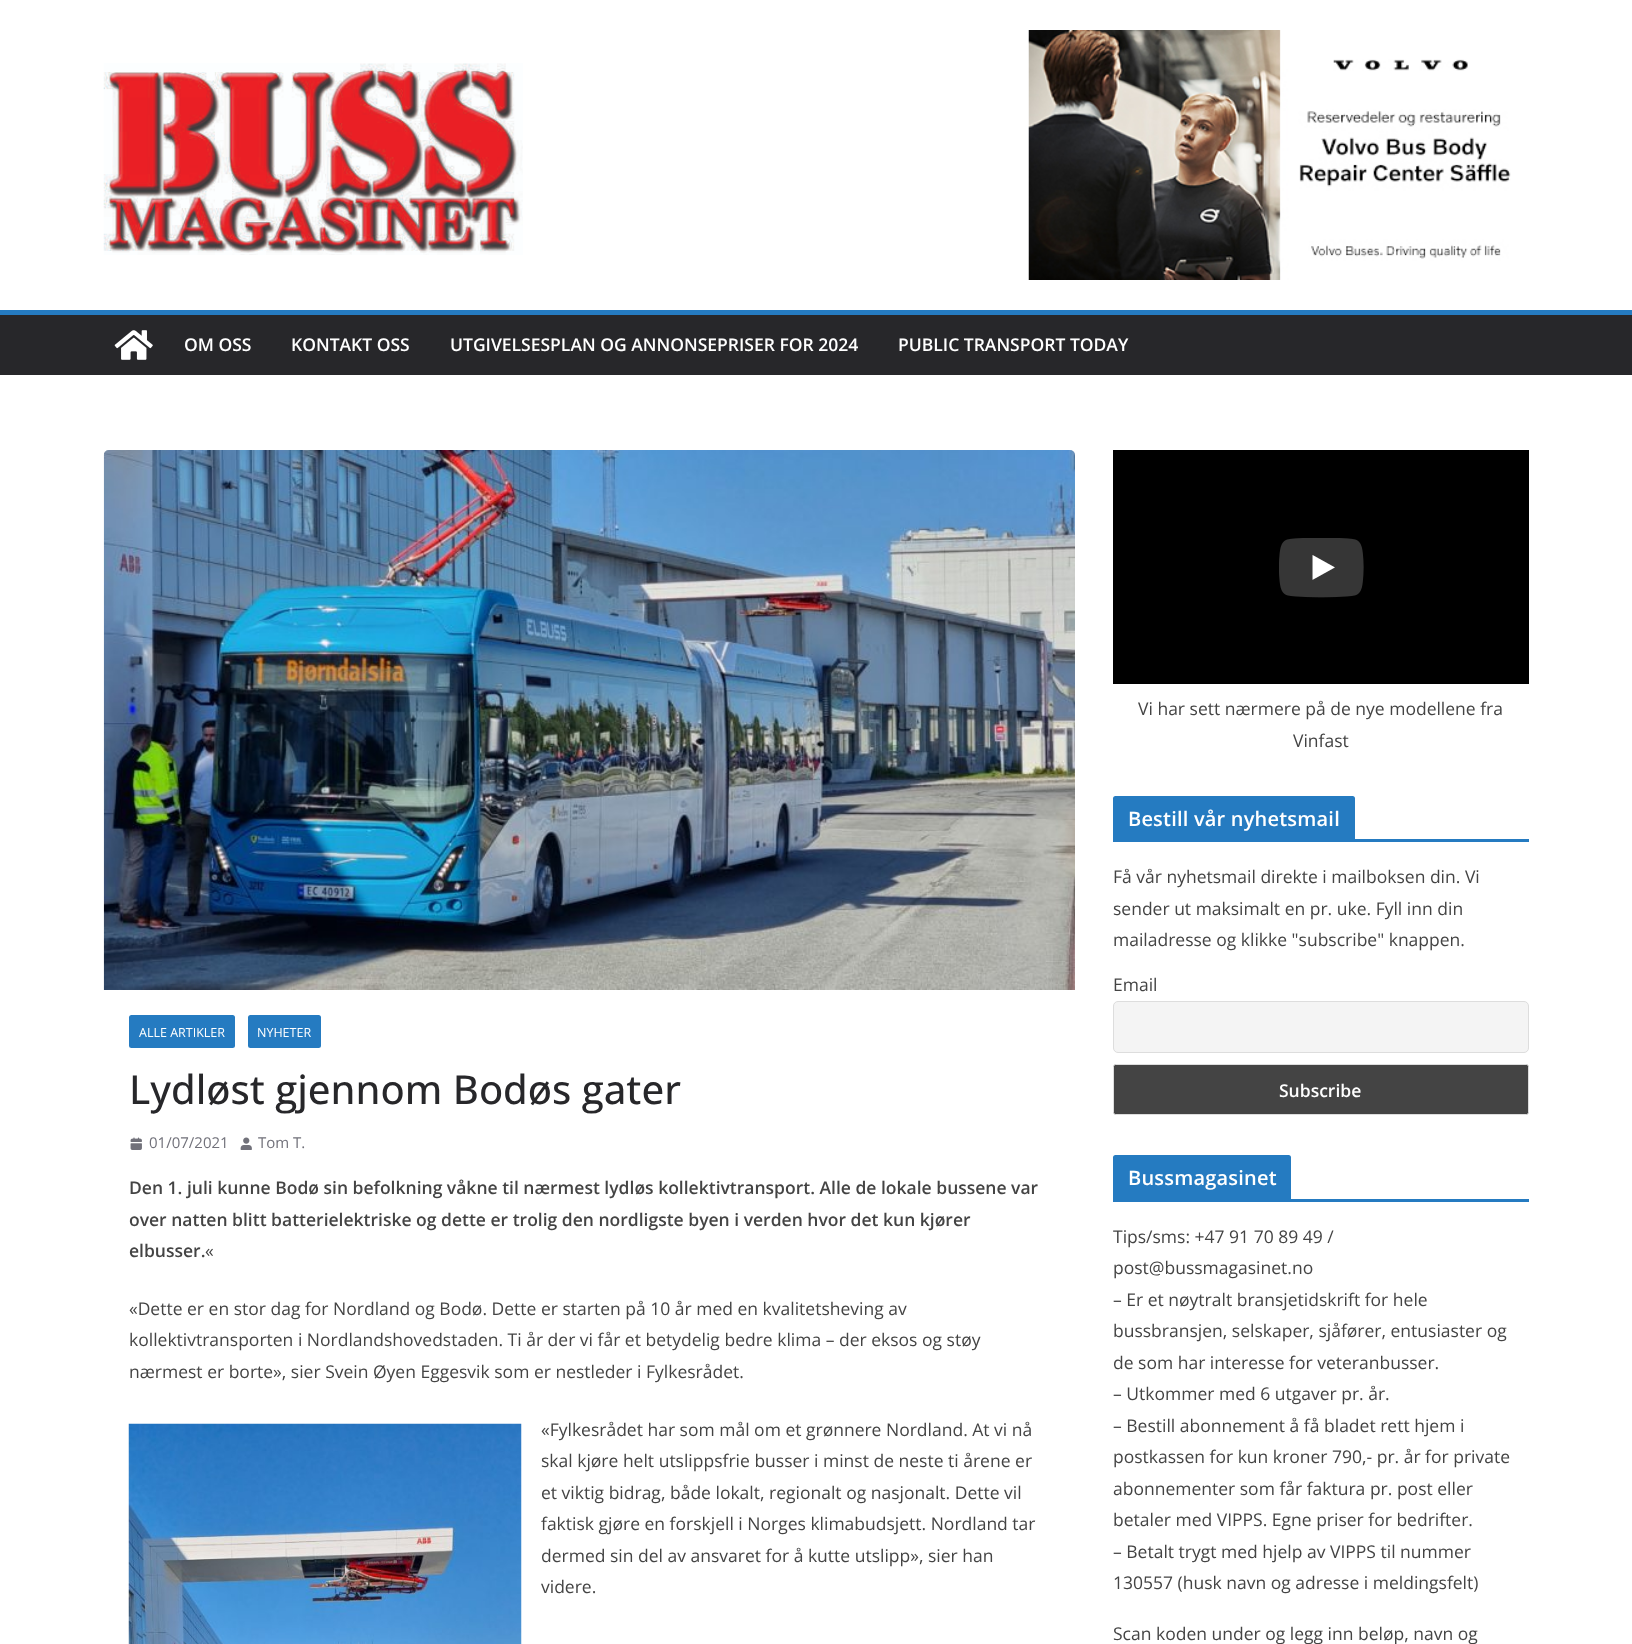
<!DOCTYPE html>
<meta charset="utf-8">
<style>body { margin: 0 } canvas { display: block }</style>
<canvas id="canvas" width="1632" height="1644"></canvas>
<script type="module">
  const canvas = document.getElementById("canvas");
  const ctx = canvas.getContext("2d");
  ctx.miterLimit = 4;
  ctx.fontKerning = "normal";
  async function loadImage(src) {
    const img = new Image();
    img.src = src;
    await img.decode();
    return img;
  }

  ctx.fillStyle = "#ffffff";
  ctx.fillRect(0, 0, 1632, 1644);
  ctx.drawImage(await loadImage("img1.png"), 103, 63, 420, 192);
  ctx.drawImage(await loadImage("img2.png"), 1028, 30, 483, 250);
  ctx.fillStyle = "#27272a";
  ctx.fillRect(0, 315, 1632, 60);
  ctx.fillStyle = "#257bc1";
  ctx.fillRect(0, 310, 1632, 5);
  ctx.drawImage(await loadImage("img3.png"), 114, 330, 39, 30);
  ctx.font = "600 17.5px Open Sans";
  ctx.fillStyle = "#ffffff";
  ctx.fillText("OM OSS", 184, 351);
  ctx.fillText("KONTAKT OSS", 291, 351);
  ctx.fillText("UTGIVELSESPLAN OG ANNONSEPRISER FOR 2024", 450, 351);
  ctx.fillText("PUBLIC TRANSPORT TODAY", 898, 351);
  ctx.drawImage(await loadImage("img4.png"), 103, 450, 972, 540);
  ctx.fillStyle = "#257bc1";
  ctx.beginPath();
  ctx.roundRect(129, 1015, 106, 33, 2.5);
  ctx.fill();
  ctx.font = "12.5px Open Sans";
  ctx.fillStyle = "#ffffff";
  ctx.fillText("ALLE ARTIKLER", 139, 1037);
  ctx.fillStyle = "#257bc1";
  ctx.beginPath();
  ctx.roundRect(248, 1015, 73, 33, 2.5);
  ctx.fill();
  ctx.fillStyle = "#ffffff";
  ctx.fillText("NYHETER", 257, 1037);
  ctx.font = "500 40px Open Sans";
  ctx.fillStyle = "#27272a";
  ctx.fillText("Lydløst gjennom Bodøs gater", 129, 1104);
  ctx.drawImage(await loadImage("img5.png"), 130, 1137, 12, 13);
  ctx.font = "15px Open Sans";
  ctx.fillStyle = "#71717a";
  ctx.fillText("01/07/2021", 149, 1148);
  ctx.drawImage(await loadImage("img6.png"), 240, 1137, 12, 13);
  ctx.fillText("Tom T.", 258, 1148);
  ctx.font = "600 17.5px Open Sans";
  ctx.fillStyle = "#444444";
  ctx.fillText("Den 1. juli kunne Bodø sin befolkning våkne til nærmest lydløs kollektivtransport. Alle de lokale bussene var", 129, 1194);
  ctx.fillText("over natten blitt batterielektriske og dette er trolig den nordligste byen i verden hvor det kun kjører", 129, 1226);
  ctx.fillText("elbusser.", 129, 1257);
  ctx.font = "17.5px Open Sans";
  ctx.fillText("«", 205, 1257);
  ctx.fillText("«Dette er en stor dag for Nordland og Bodø. Dette er starten på 10 år med en kvalitetsheving av", 129, 1315);
  ctx.fillText("kollektivtransporten i Nordlandshovedstaden. Ti år der vi får et betydelig bedre klima – der eksos og støy", 129, 1346);
  ctx.fillText("nærmest er borte», sier Svein Øyen Eggesvik som er nestleder i Fylkesrådet.", 129, 1378);
  ctx.drawImage(await loadImage("img7.png"), 128, 1423, 394, 221);
  ctx.fillText("«Fylkesrådet har som mål om et grønnere Nordland. At vi nå", 541, 1436);
  ctx.fillText("skal kjøre helt utslippsfrie busser i minst de neste ti årene er", 541, 1467);
  ctx.fillText("et viktig bidrag, både lokalt, regionalt og nasjonalt. Dette vil", 541, 1499);
  ctx.fillText("faktisk gjøre en forskjell i Norges klimabudsjett. Nordland tar", 541, 1530);
  ctx.fillText("dermed sin del av ansvaret for å kutte utslipp», sier han", 541, 1562);
  ctx.fillText("videre.", 541, 1593);
  ctx.fillStyle = "#000000";
  ctx.fillRect(1113, 450, 416, 234);
  ctx.drawImage(await loadImage("img8.png"), 1279, 538, 85, 60);
  ctx.fillStyle = "#444444";
  ctx.fillText("Vi har sett nærmere på de nye modellene fra", 1138, 715);
  ctx.fillText("Vinfast", 1293, 747);
  ctx.fillStyle = "#257bc1";
  ctx.fillRect(1113, 839, 416, 3);
  ctx.beginPath();
  ctx.roundRect(1113, 796, 242, 43, [2.5, 2.5, 0, 0]);
  ctx.fill();
  ctx.letterSpacing = "0.2px";
  ctx.font = "600 20px Open Sans";
  ctx.fillStyle = "#ffffff";
  ctx.fillText("Bestill vår nyhetsmail", 1128, 826);
  ctx.letterSpacing = "0px";
  ctx.font = "17.5px Open Sans";
  ctx.fillStyle = "#444444";
  ctx.fillText("Få vår nyhetsmail direkte i mailboksen din. Vi", 1113, 883);
  ctx.fillText("sender ut maksimalt en pr. uke. Fyll inn din", 1113, 915);
  ctx.fillText("mailadresse og klikke \"subscribe\" knappen.", 1113, 946);
  ctx.fillText("Email", 1113, 991);
  ctx.fillStyle = "#f4f4f4";
  ctx.beginPath();
  ctx.roundRect(1113.5, 1001.5, 415, 51, 4.5);
  ctx.fill();
  ctx.strokeStyle = "#dddddd";
  ctx.stroke();
  ctx.fillStyle = "#444444";
  ctx.beginPath();
  ctx.roundRect(1113.5, 1064.5, 415, 50, 2);
  ctx.fill();
  ctx.stroke();
  ctx.font = "600 17.5px Open Sans";
  ctx.fillStyle = "#ffffff";
  ctx.fillText("Subscribe", 1279, 1097);
  ctx.fillStyle = "#257bc1";
  ctx.fillRect(1113, 1199, 416, 3);
  ctx.beginPath();
  ctx.roundRect(1113, 1155, 178, 44, [2.5, 2.5, 0, 0]);
  ctx.fill();
  ctx.letterSpacing = "0.2px";
  ctx.font = "600 20px Open Sans";
  ctx.fillStyle = "#ffffff";
  ctx.fillText("Bussmagasinet", 1128, 1185);
  ctx.letterSpacing = "0px";
  ctx.font = "17.5px Open Sans";
  ctx.fillStyle = "#444444";
  ctx.fillText("Tips/sms: +47 91 70 89 49 /", 1113, 1243);
  ctx.fillText("post@bussmagasinet.no", 1113, 1274);
  ctx.fillText("– Er et nøytralt bransjetidskrift for hele", 1113, 1306);
  ctx.fillText("bussbransjen, selskaper, sjåfører, entusiaster og", 1113, 1337);
  ctx.fillText("de som har interesse for veteranbusser.", 1113, 1369);
  ctx.fillText("– Utkommer med 6 utgaver pr. år.", 1113, 1400);
  ctx.fillText("– Bestill abonnement å få bladet rett hjem i", 1113, 1432);
  ctx.fillText("postkassen for kun kroner 790,- pr. år for private", 1113, 1463);
  ctx.fillText("abonnementer som får faktura pr. post eller", 1113, 1495);
  ctx.fillText("betaler med VIPPS. Egne priser for bedrifter.", 1113, 1526);
  ctx.fillText("– Betalt trygt med hjelp av VIPPS til nummer", 1113, 1558);
  ctx.fillText("130557 (husk navn og adresse i meldingsfelt)", 1113, 1589);
  ctx.fillText("Scan koden under og legg inn beløp, navn og", 1113, 1640);
</script>
